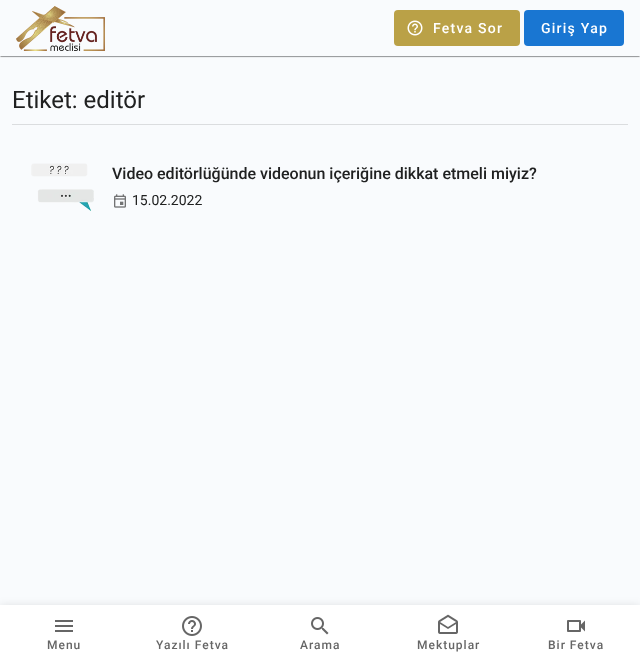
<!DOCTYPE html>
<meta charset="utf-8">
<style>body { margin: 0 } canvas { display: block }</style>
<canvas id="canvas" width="640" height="661"></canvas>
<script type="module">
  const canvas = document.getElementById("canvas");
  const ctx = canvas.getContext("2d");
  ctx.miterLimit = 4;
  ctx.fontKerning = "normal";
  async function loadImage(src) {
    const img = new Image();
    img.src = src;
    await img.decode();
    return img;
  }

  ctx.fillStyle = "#f9fbfd";
  ctx.fillRect(0, 0, 640, 661);
  ctx.save();
  ctx.beginPath();
  ctx.rect(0, 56, 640, 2);
  ctx.clip();
  ctx.fillStyle = "rgba(0, 0, 0, 0.12)";
  ctx.filter = "blur(1.5px)";
  ctx.beginPath();
  ctx.rect(0, 1, 640, 56);
  ctx.fill();
  ctx.filter = "none";
  ctx.restore();
  ctx.save();
  ctx.beginPath();
  ctx.rect(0, 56, 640, 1);
  ctx.clip();
  ctx.fillStyle = "rgba(0, 0, 0, 0.14)";
  ctx.filter = "blur(0.5px)";
  ctx.beginPath();
  ctx.rect(0, 1, 640, 56);
  ctx.fill();
  ctx.filter = "none";
  ctx.restore();
  ctx.save();
  ctx.beginPath();
  ctx.rect(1, 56, 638, 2);
  ctx.clip();
  ctx.fillStyle = "rgba(0, 0, 0, 0.2)";
  ctx.filter = "blur(0.5px)";
  ctx.beginPath();
  ctx.rect(1, 3, 638, 54);
  ctx.fill();
  ctx.filter = "none";
  ctx.restore();
  ctx.drawImage(await loadImage("img1.png"), 16, 6, 89, 45);
  ctx.fillStyle = "#baa147";
  ctx.beginPath();
  ctx.roundRect(394, 10, 126, 36, 4);
  ctx.fill();
  ctx.drawImage(await loadImage("img2.png"), 407, 20, 16, 16);
  ctx.letterSpacing = "1.25px";
  ctx.font = "500 14px Roboto";
  ctx.fillStyle = "#ffffff";
  ctx.fillText("Fetva Sor", 433, 33);
  ctx.fillStyle = "#1976d2";
  ctx.beginPath();
  ctx.roundRect(524, 10, 100, 36, 4);
  ctx.fill();
  ctx.fillStyle = "#ffffff";
  ctx.fillText("Giriş Yap", 541, 33);
  ctx.letterSpacing = "0px";
  ctx.font = "24px Roboto";
  ctx.fillStyle = "#202121";
  ctx.fillText("Etiket: editör", 12, 108);
  ctx.fillStyle = "#dbdddf";
  ctx.fillRect(12, 124, 616, 1);
  ctx.drawImage(await loadImage("img3.png"), 31, 163, 63, 48);
  ctx.font = "500 16px Roboto";
  ctx.fillStyle = "#202121";
  ctx.fillText("Video editörlüğünde videonun içeriğine dikkat etmeli miyiz?", 112, 179);
  ctx.drawImage(await loadImage("img4.png"), 114, 194, 12, 14);
  ctx.font = "14px Roboto";
  ctx.fillText("15.02.2022", 132, 205);
  ctx.fillStyle = "rgba(0, 0, 0, 0.12)";
  ctx.filter = "blur(5px)";
  ctx.beginPath();
  ctx.rect(0, 606, 640, 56);
  ctx.fill();
  ctx.filter = "none";
  ctx.fillStyle = "#ffffff";
  ctx.fillRect(0, 605, 640, 56);
  ctx.drawImage(await loadImage("img5.png"), 55, 620, 18, 12);
  ctx.letterSpacing = "1px";
  ctx.font = "500 12px Roboto";
  ctx.fillStyle = "#666666";
  ctx.fillText("Menu", 47, 649);
  ctx.drawImage(await loadImage("img6.png"), 182, 616, 20, 20);
  ctx.fillText("Yazılı Fetva", 156, 649);
  ctx.drawImage(await loadImage("img7.png"), 311, 617, 18, 18);
  ctx.fillText("Arama", 300, 649);
  ctx.drawImage(await loadImage("img8.png"), 438, 614, 20, 20);
  ctx.fillText("Mektuplar", 417, 649);
  ctx.drawImage(await loadImage("img9.png"), 567, 620, 18, 12);
  ctx.fillText("Bir Fetva", 548, 649);
</script>
